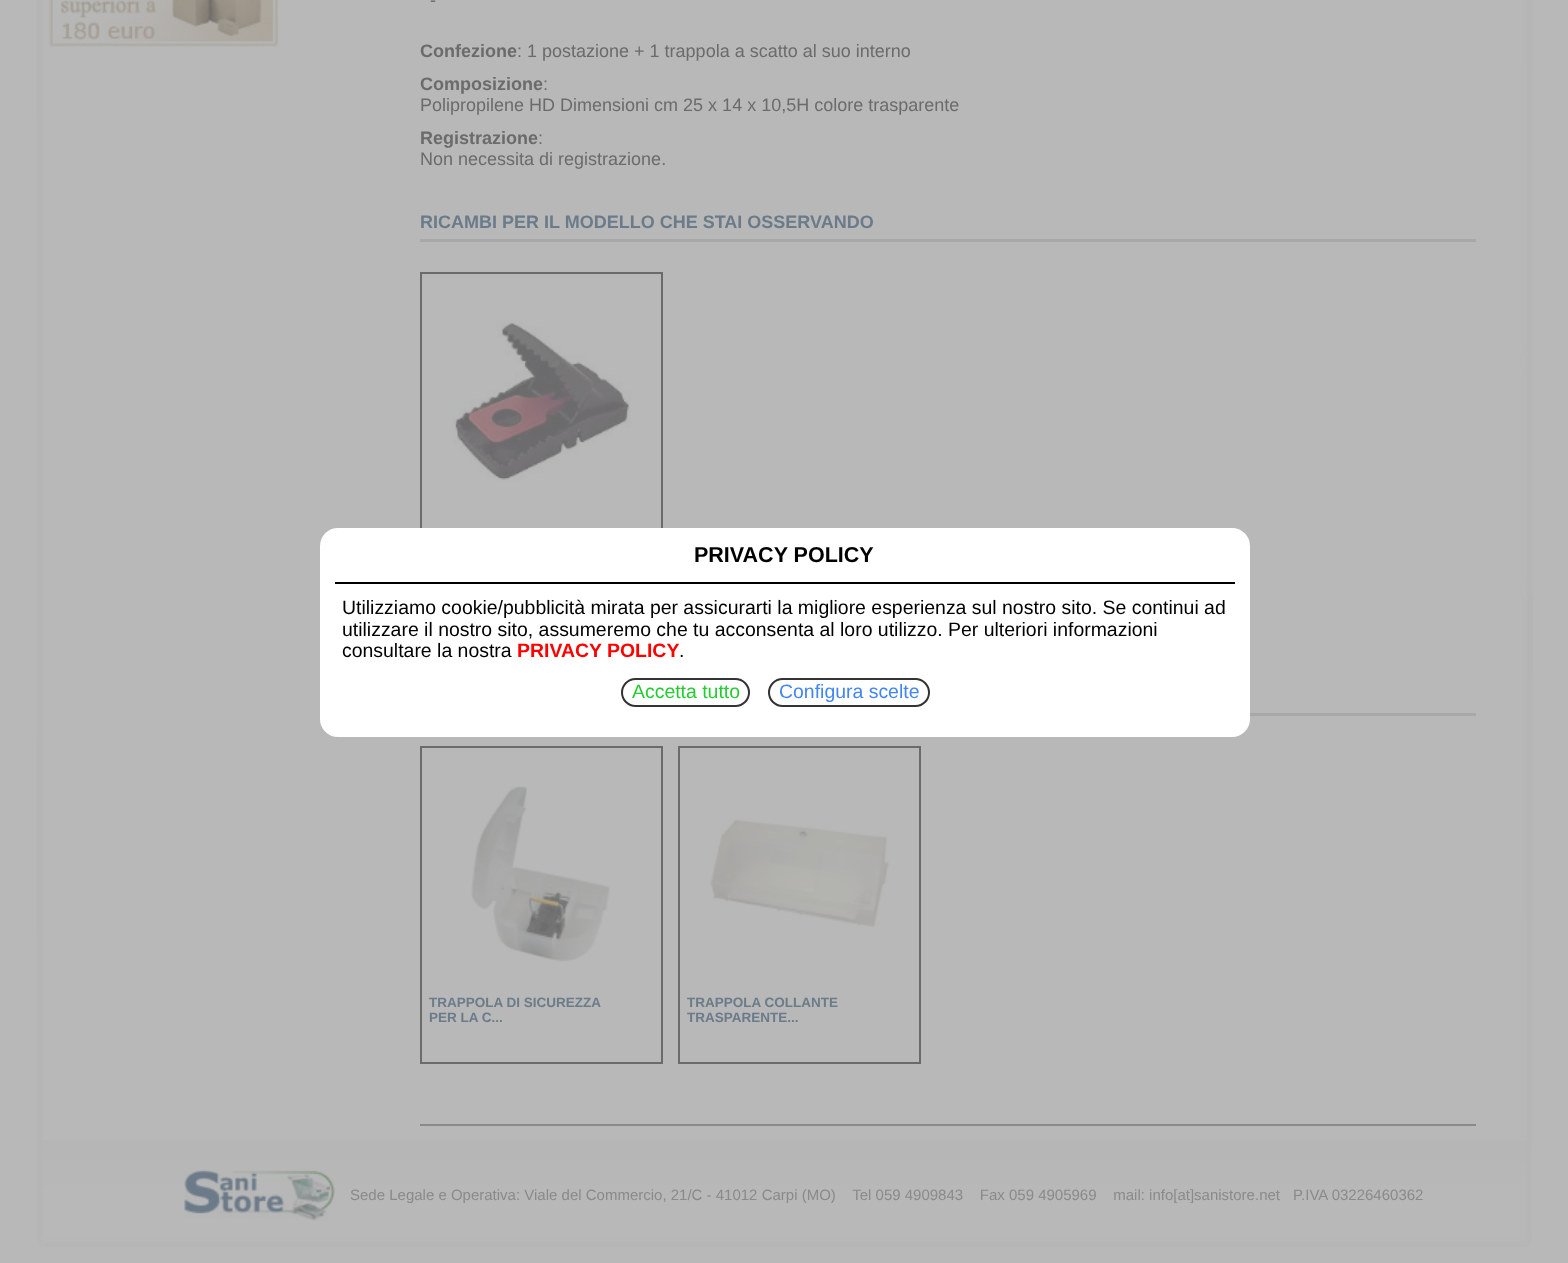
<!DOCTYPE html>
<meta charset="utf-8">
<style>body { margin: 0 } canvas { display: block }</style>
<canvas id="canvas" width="1568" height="1263"></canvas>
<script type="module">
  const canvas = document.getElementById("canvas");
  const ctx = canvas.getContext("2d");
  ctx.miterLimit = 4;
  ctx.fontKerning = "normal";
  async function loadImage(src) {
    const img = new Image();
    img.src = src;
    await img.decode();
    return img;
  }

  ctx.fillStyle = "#b8b8b8";
  ctx.fillRect(0, 0, 1568, 1263);
  ctx.drawImage(await loadImage("img1.png"), 36, 0, 1497, 1140);
  ctx.drawImage(await loadImage("img2.png"), 48, 0, 231, 48);
  ctx.fillStyle = "#8a8a8a";
  ctx.fillRect(420, 1124, 1056, 2);
  ctx.font = "18px Liberation Sans";
  ctx.fillStyle = "#6b6b6b";
  ctx.fillText("-", 430, 6);
  ctx.font = "bold 18px Liberation Sans";
  ctx.fillText("Confezione", 420, 57);
  ctx.font = "18px Liberation Sans";
  ctx.fillText(": 1 postazione + 1 trappola a scatto al suo interno", 517, 57);
  ctx.font = "bold 18px Liberation Sans";
  ctx.fillText("Composizione", 420, 90);
  ctx.font = "18px Liberation Sans";
  ctx.fillText(":", 543, 90);
  ctx.fillText("Polipropilene HD Dimensioni cm 25 x 14 x 10,5H colore trasparente", 420, 111);
  ctx.font = "bold 18px Liberation Sans";
  ctx.fillText("Registrazione", 420, 144);
  ctx.font = "18px Liberation Sans";
  ctx.fillText(":", 538, 144);
  ctx.fillText("Non necessita di registrazione.", 420, 165);
  ctx.fillStyle = "#a8a8a8";
  ctx.fillRect(420, 239, 1056, 3);
  ctx.font = "bold 18px Liberation Sans";
  ctx.fillStyle = "#6b7b8a";
  ctx.fillText("RICAMBI PER IL MODELLO CHE STAI OSSERVANDO", 420, 228);
  ctx.strokeStyle = "#6b6b6b";
  ctx.lineWidth = 2;
  ctx.strokeRect(421, 273, 241, 316);
  ctx.drawImage(await loadImage("img3.png"), 452, 320, 179, 161);
  ctx.fillStyle = "#a8a8a8";
  ctx.fillRect(1250, 713, 226, 3);
  ctx.strokeRect(421, 747, 241, 316);
  ctx.drawImage(await loadImage("img4.png"), 471, 786, 139, 176);
  ctx.font = "bold 13.5px Liberation Sans";
  ctx.fillStyle = "#6b7b8a";
  ctx.fillText("TRAPPOLA DI SICUREZZA", 429, 1007);
  ctx.fillText("PER LA C...", 429, 1022);
  ctx.strokeRect(679, 747, 241, 316);
  ctx.drawImage(await loadImage("img5.png"), 710, 819, 180, 109);
  ctx.fillText("TRAPPOLA COLLANTE", 687, 1007);
  ctx.fillText("TRASPARENTE...", 687, 1022);
  ctx.fillStyle = "#ffffff";
  ctx.beginPath();
  ctx.roundRect(320, 528, 930, 209, 18);
  ctx.fill();
  ctx.fillStyle = "#000000";
  ctx.fillRect(335, 582, 900, 2);
  ctx.font = "bold 21.5px Liberation Sans";
  ctx.fillText("PRIVACY POLICY", 694, 562);
  ctx.font = "19.45px Liberation Sans";
  ctx.fillText("Utilizziamo cookie/pubblicità mirata per assicurarti la migliore esperienza sul nostro sito. Se continui ad", 342, 614);
  ctx.fillText("utilizzare il nostro sito, assumeremo che tu acconsenta al loro utilizzo. Per ulteriori informazioni", 342, 636);
  ctx.fillText("consultare la nostra", 342, 657);
  ctx.font = "bold 19.45px Liberation Sans";
  ctx.fillStyle = "#ff0000";
  ctx.fillText("PRIVACY POLICY", 517, 657);
  ctx.font = "19.45px Liberation Sans";
  ctx.fillStyle = "#000000";
  ctx.fillText(".", 679, 657);
  ctx.beginPath();
  ctx.roundRect(622, 679, 127, 27, 13.5);
  ctx.strokeStyle = "#333333";
  ctx.stroke();
  ctx.fillStyle = "#24cc31";
  ctx.fillText("Accetta tutto", 632, 698);
  ctx.beginPath();
  ctx.roundRect(769, 679, 160, 27, 13.5);
  ctx.stroke();
  ctx.fillStyle = "#4285f4";
  ctx.fillText("Configura scelte", 779, 698);
  ctx.drawImage(await loadImage("img6.png"), 37, 1140, 1495, 107);
  ctx.drawImage(await loadImage("img7.png"), 184, 1169, 151, 52);
  ctx.font = "15px Liberation Sans";
  ctx.fillStyle = "#8a8a8a";
  ctx.fillText("Sede Legale e Operativa: Viale del Commercio, 21/C - 41012 Carpi (MO)    Tel 059 4909843    Fax 059 4905969    mail: info[at]sanistore.net", 350, 1200);
  ctx.fillText("P.IVA 03226460362", 1293, 1200);
</script>
